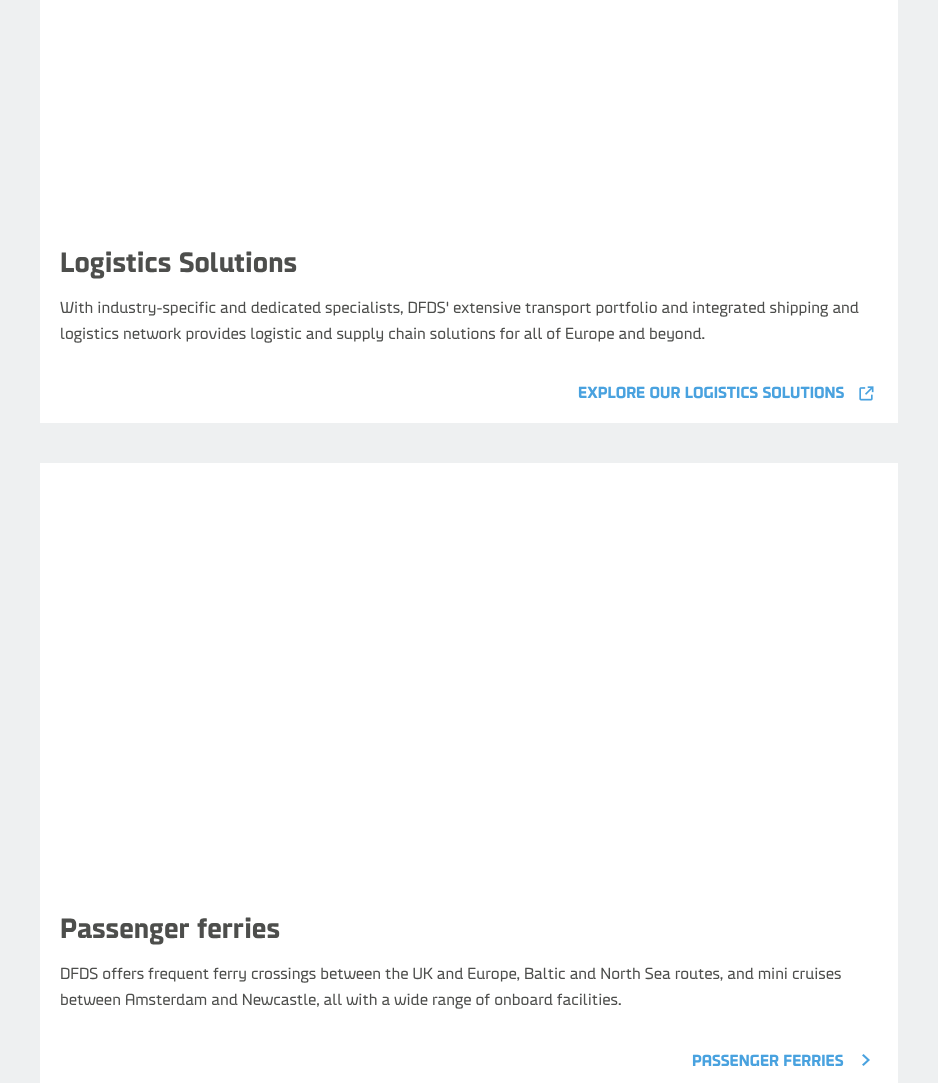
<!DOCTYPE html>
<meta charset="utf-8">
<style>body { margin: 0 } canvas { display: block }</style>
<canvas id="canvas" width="938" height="1083"></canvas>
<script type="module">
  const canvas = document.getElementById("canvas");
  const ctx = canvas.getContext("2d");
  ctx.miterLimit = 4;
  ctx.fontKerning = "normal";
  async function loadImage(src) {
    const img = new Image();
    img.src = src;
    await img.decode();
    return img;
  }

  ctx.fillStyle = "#eef0f1";
  ctx.fillRect(0, 0, 938, 1083);
  ctx.fillStyle = "#ffffff";
  ctx.fillRect(40, 0, 858, 423);
  ctx.font = "bold 28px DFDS";
  ctx.fillStyle = "#4d4e4c";
  ctx.fillText("Logistics Solutions", 60, 272);
  ctx.font = "16px DFDS";
  ctx.fillText("With industry-specific and dedicated specialists, DFDS' extensive transport portfolio and integrated shipping and", 60, 313);
  ctx.fillText("logistics network provides logistic and supply chain solutions for all of Europe and beyond.", 60, 339);
  ctx.font = "bold 16px DFDS";
  ctx.fillStyle = "#49a2df";
  ctx.fillText("EXPLORE OUR LOGISTICS SOLUTIONS", 578, 398);
  ctx.drawImage(await loadImage("img1.png"), 859, 386, 15, 15);
  ctx.fillStyle = "#ffffff";
  ctx.fillRect(40, 463, 858, 620);
  ctx.font = "bold 28px DFDS";
  ctx.fillStyle = "#4d4e4c";
  ctx.fillText("Passenger ferries", 60, 938);
  ctx.font = "16px DFDS";
  ctx.fillText("DFDS offers frequent ferry crossings between the UK and Europe, Baltic and North Sea routes, and mini cruises", 60, 979);
  ctx.fillText("between Amsterdam and Newcastle, all with a wide range of onboard facilities.", 60, 1005);
  ctx.font = "bold 16px DFDS";
  ctx.fillStyle = "#49a2df";
  ctx.fillText("PASSENGER FERRIES", 692, 1066);
  ctx.drawImage(await loadImage("img2.png"), 862, 1054, 8, 12);
</script>
